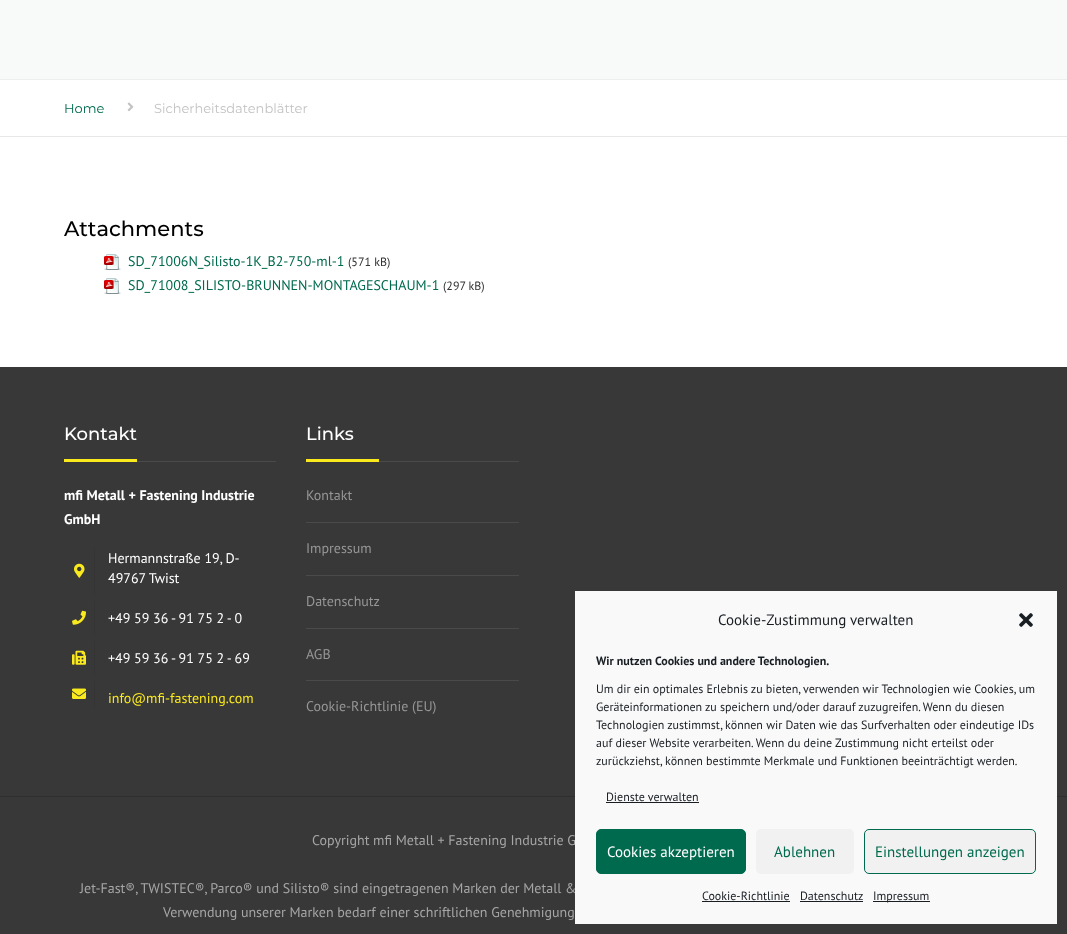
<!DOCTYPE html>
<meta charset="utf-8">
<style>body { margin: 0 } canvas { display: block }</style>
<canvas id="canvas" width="1067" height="934"></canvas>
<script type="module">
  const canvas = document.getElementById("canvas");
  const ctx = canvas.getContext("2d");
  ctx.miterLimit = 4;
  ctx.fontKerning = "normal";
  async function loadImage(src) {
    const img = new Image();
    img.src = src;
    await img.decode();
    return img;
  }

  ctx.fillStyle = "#ffffff";
  ctx.fillRect(0, 0, 1067, 934);
  ctx.fillStyle = "#f8f9f9";
  ctx.fillRect(0, 0, 1067, 79);
  ctx.fillStyle = "#eeeeee";
  ctx.fillRect(0, 79, 1067, 1);
  ctx.fillStyle = "#e7e7e7";
  ctx.fillRect(0, 136, 1067, 1);
  ctx.font = "13px Montserrat";
  ctx.fillStyle = "#006a4e";
  ctx.fillText("Home", 64, 113);
  ctx.drawImage(await loadImage("img1.png"), 127, 102, 7, 10);
  ctx.fillStyle = "#c3c3c3";
  ctx.fillText("Sicherheitsdatenblätter", 154, 113);
  ctx.font = "500 21px Montserrat";
  ctx.fillStyle = "#000000";
  ctx.fillText("Attachments", 64, 236);
  ctx.drawImage(await loadImage("img2.png"), 104, 254, 17, 16);
  ctx.font = "14px PT Sans";
  ctx.fillStyle = "#006a4e";
  ctx.fillText("SD_71006N_Silisto-1K_B2-750-ml-1", 128, 266);
  ctx.font = "12px PT Sans";
  ctx.fillStyle = "#333333";
  ctx.fillText("(571 kB)", 348, 266);
  ctx.drawImage(await loadImage("img2.png"), 104, 278, 17, 16);
  ctx.font = "14px PT Sans";
  ctx.fillStyle = "#006a4e";
  ctx.fillText("SD_71008_SILISTO-BRUNNEN-MONTAGESCHAUM-1", 128, 290);
  ctx.font = "12px PT Sans";
  ctx.fillStyle = "#333333";
  ctx.fillText("(297 kB)", 443, 290);
  ctx.fillStyle = "#383838";
  ctx.fillRect(0, 367, 1067, 567);
  ctx.fillStyle = "#4a4a4a";
  ctx.fillRect(137, 461, 139, 1);
  ctx.font = "500 18px Montserrat";
  ctx.fillStyle = "#ffffff";
  ctx.fillText("Kontakt", 64, 440);
  ctx.fillStyle = "#fae91c";
  ctx.fillRect(64, 459, 73, 3);
  ctx.font = "bold 14px PT Sans";
  ctx.fillStyle = "#ffffff";
  ctx.fillText("mfi Metall + Fastening Industrie", 64, 500);
  ctx.fillText("GmbH", 64, 524);
  ctx.fillStyle = "#353535";
  ctx.fillRect(94, 548, 1, 47);
  ctx.font = "14px PT Sans";
  ctx.fillStyle = "#ffffff";
  ctx.fillText("Hermannstraße 19, D-", 108, 563);
  ctx.drawImage(await loadImage("img3.png"), 74, 563, 11, 15);
  ctx.fillText("49767 Twist", 108, 583);
  ctx.drawImage(await loadImage("img4.png"), 72, 610, 14, 15);
  ctx.fillStyle = "#353535";
  ctx.fillRect(94, 601, 1, 34);
  ctx.fillStyle = "#ffffff";
  ctx.fillText("+49 59 36 - 91 75 2 - 0", 108, 623);
  ctx.drawImage(await loadImage("img5.png"), 72, 650, 14, 15);
  ctx.fillStyle = "#353535";
  ctx.fillRect(94, 641, 1, 34);
  ctx.fillStyle = "#ffffff";
  ctx.fillText("+49 59 36 - 91 75 2 - 69", 108, 663);
  ctx.drawImage(await loadImage("img6.png"), 72, 688, 14, 11);
  ctx.fillStyle = "#353535";
  ctx.fillRect(94, 681, 1, 27);
  ctx.fillStyle = "#fae91c";
  ctx.fillText("info@mfi-fastening.com", 108, 703);
  ctx.fillStyle = "#4a4a4a";
  ctx.fillRect(379, 461, 140, 1);
  ctx.font = "500 18px Montserrat";
  ctx.fillStyle = "#ffffff";
  ctx.fillText("Links", 306, 440);
  ctx.fillStyle = "#fae91c";
  ctx.fillRect(306, 459, 73, 3);
  ctx.fillStyle = "#4a4a4a";
  ctx.fillRect(306, 522, 213, 1);
  ctx.font = "14px PT Sans";
  ctx.fillStyle = "#969696";
  ctx.fillText("Kontakt", 306, 500);
  ctx.fillStyle = "#4a4a4a";
  ctx.fillRect(306, 575, 213, 1);
  ctx.fillStyle = "#969696";
  ctx.fillText("Impressum", 306, 553);
  ctx.fillStyle = "#4a4a4a";
  ctx.fillRect(306, 628, 213, 1);
  ctx.fillStyle = "#969696";
  ctx.fillText("Datenschutz", 306, 606);
  ctx.fillStyle = "#4a4a4a";
  ctx.fillRect(306, 680, 213, 1);
  ctx.fillStyle = "#969696";
  ctx.fillText("AGB", 306, 659);
  ctx.fillText("Cookie-Richtlinie (EU)", 306, 711);
  ctx.fillStyle = "#2e2e2e";
  ctx.fillRect(0, 796, 1067, 1);
  ctx.fillStyle = "#a6a6a6";
  ctx.fillText("Copyright mfi Metall + Fastening Industrie G", 312, 845);
  ctx.fillText("Jet-Fast®, TWISTEC®, Parco® und Silisto® sind eingetragenen Marken der Metall &", 80, 893);
  ctx.fillText("Verwendung unserer Marken bedarf einer schriftlichen Genehmigung", 163, 917);
  ctx.fillStyle = "#f9f9f9";
  ctx.fillRect(575, 591, 482, 333);
  ctx.font = "15px PT Sans";
  ctx.fillStyle = "#191e23";
  ctx.fillText("Cookie-Zustimmung verwalten", 718, 625);
  ctx.drawImage(await loadImage("img7.png"), 1019, 613, 14, 14);
  ctx.font = "bold 12px PT Sans";
  ctx.fillText("Wir nutzen Cookies und andere Technologien.", 596, 665);
  ctx.font = "12px PT Sans";
  ctx.fillText("Um dir ein optimales Erlebnis zu bieten, verwenden wir Technologien wie Cookies, um", 596, 693);
  ctx.fillText("Geräteinformationen zu speichern und/oder darauf zuzugreifen. Wenn du diesen", 596, 711);
  ctx.fillText("Technologien zustimmst, können wir Daten wie das Surfverhalten oder eindeutige IDs", 596, 729);
  ctx.fillText("auf dieser Website verarbeiten. Wenn du deine Zustimmung nicht erteilst oder", 596, 747);
  ctx.fillText("zurückziehst, können bestimmte Merkmale und Funktionen beeinträchtigt werden.", 596, 765);
  ctx.fillText("Dienste verwalten", 606, 801);
  ctx.fillRect(606, 802, 93, 1);
  ctx.fillStyle = "#006a4e";
  ctx.beginPath();
  ctx.roundRect(596.5, 829.5, 149, 44, 4.5);
  ctx.fill();
  ctx.strokeStyle = "#006a4e";
  ctx.stroke();
  ctx.font = "15px PT Sans";
  ctx.fillStyle = "#ffffff";
  ctx.fillText("Cookies akzeptieren", 607, 857);
  ctx.fillStyle = "#f1f1f1";
  ctx.beginPath();
  ctx.roundRect(756, 829, 98, 45, 5);
  ctx.fill();
  ctx.fillStyle = "#006a4e";
  ctx.fillText("Ablehnen", 774, 857);
  ctx.fillStyle = "#f1f1f1";
  ctx.beginPath();
  ctx.roundRect(864.5, 829.5, 171, 44, 4.5);
  ctx.fill();
  ctx.stroke();
  ctx.fillStyle = "#006a4e";
  ctx.fillText("Einstellungen anzeigen", 875, 857);
  ctx.font = "12px PT Sans";
  ctx.fillStyle = "#191e23";
  ctx.fillText("Cookie-Richtlinie", 702, 900);
  ctx.fillRect(702, 901, 88, 1);
  ctx.fillText("Datenschutz", 800, 900);
  ctx.fillRect(800, 901, 63, 1);
  ctx.fillRect(873, 901, 57, 1);
  ctx.fillText("Impressum", 873, 900);
</script>
